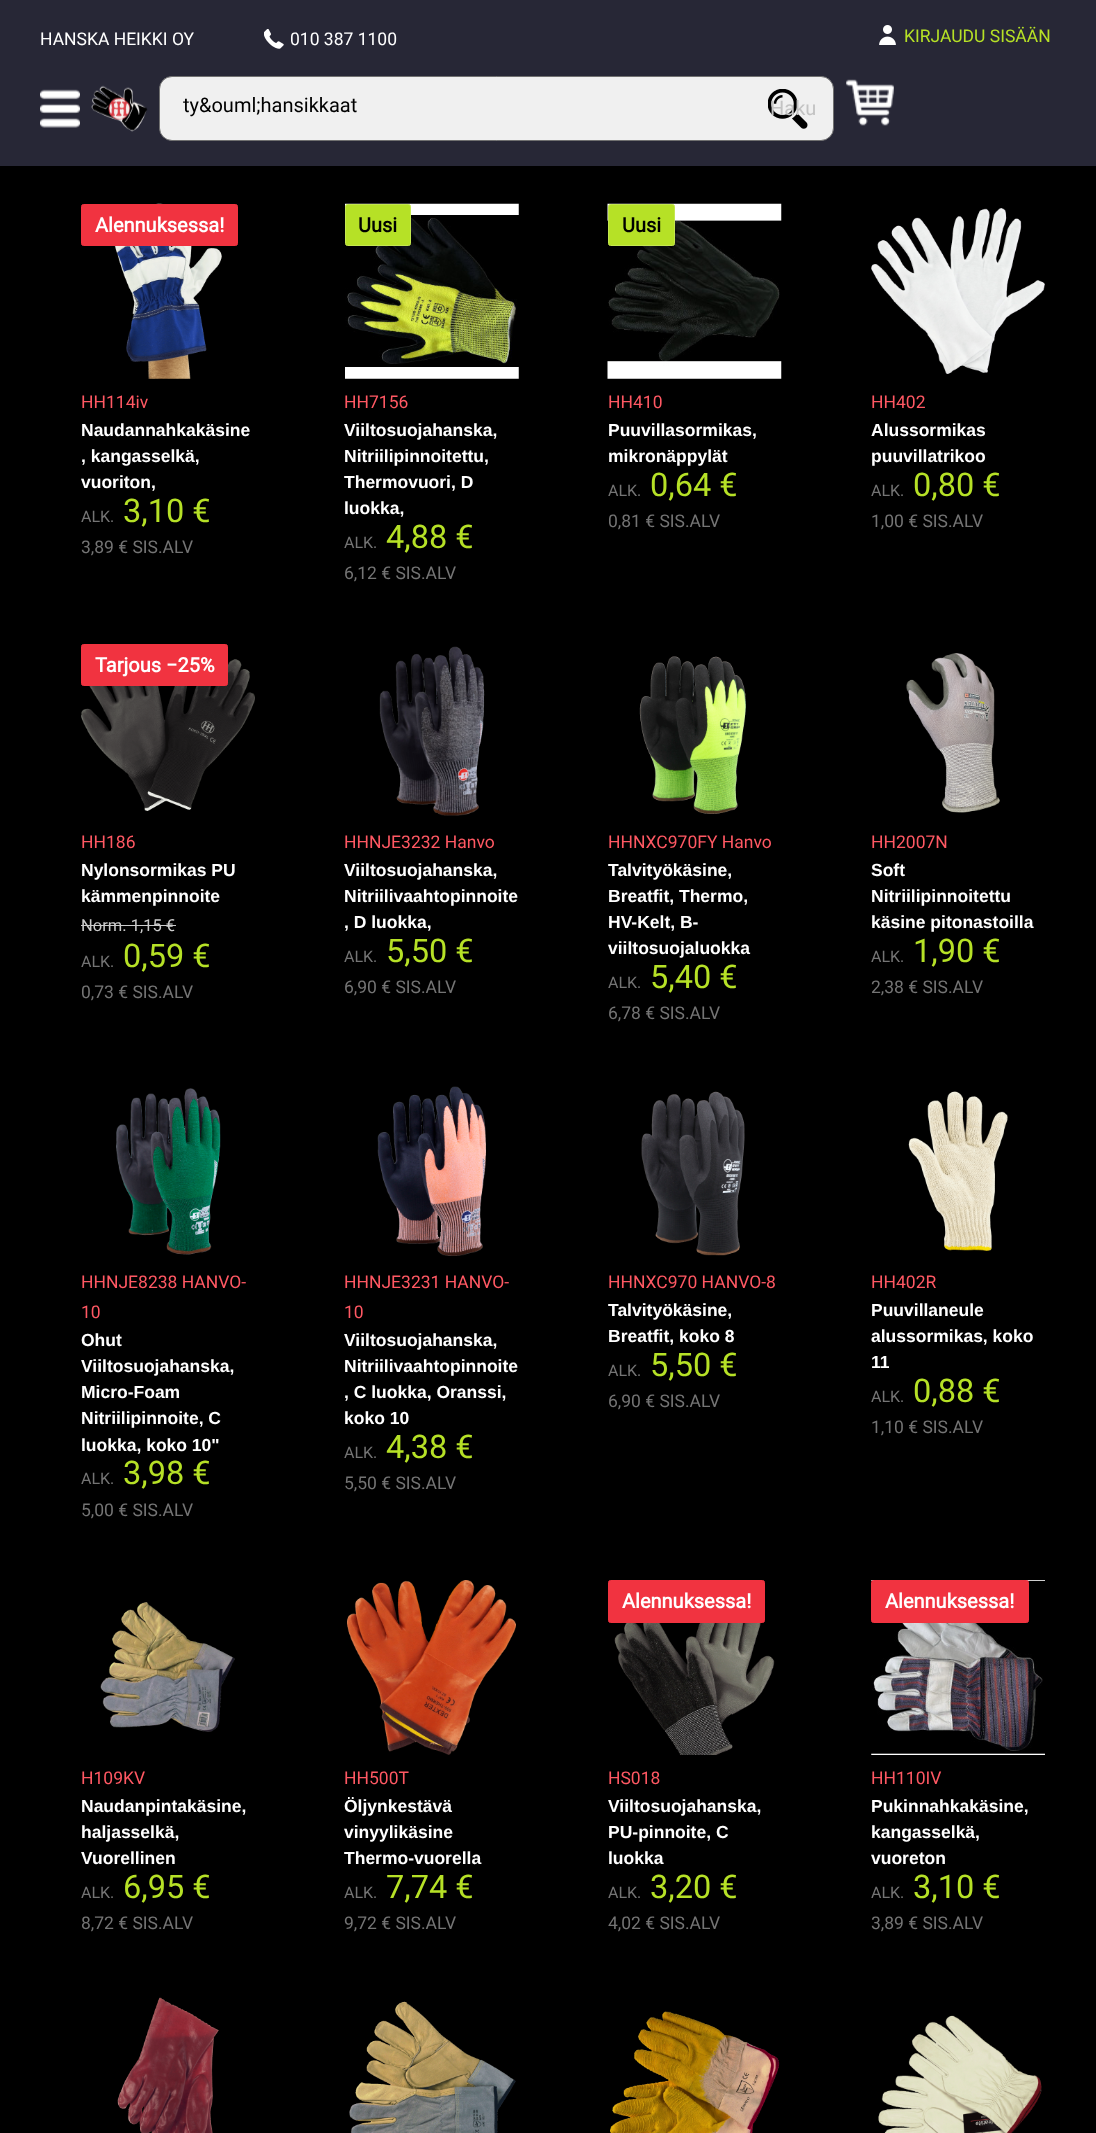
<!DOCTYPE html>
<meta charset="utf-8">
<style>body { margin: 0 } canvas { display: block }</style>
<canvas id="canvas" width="1096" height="2133"></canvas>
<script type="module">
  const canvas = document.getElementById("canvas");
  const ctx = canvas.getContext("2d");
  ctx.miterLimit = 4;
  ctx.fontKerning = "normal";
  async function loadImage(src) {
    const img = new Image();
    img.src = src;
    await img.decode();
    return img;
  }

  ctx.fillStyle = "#000000";
  ctx.fillRect(0, 0, 1096, 2133);
  ctx.fillStyle = "#272736";
  ctx.fillRect(0, 0, 1096, 166);
  ctx.font = "17.5px Roboto";
  ctx.fillStyle = "#ffffff";
  ctx.fillText("HANSKA HEIKKI OY", 40, 45);
  ctx.drawImage(await loadImage("img1.png"), 264, 29, 20, 20);
  ctx.fillText("010 387 1100", 290, 45);
  ctx.drawImage(await loadImage("img2.png"), 879, 25, 17, 20);
  ctx.fillStyle = "#b6e126";
  ctx.fillText("KIRJAUDU SISÄÄN", 904, 42);
  ctx.drawImage(await loadImage("img3.png"), 40, 89, 40, 39);
  ctx.drawImage(await loadImage("img4.png"), 91, 85, 57, 47);
  ctx.fillStyle = "#f0f0f0";
  ctx.beginPath();
  ctx.roundRect(159.5, 76.5, 674, 64, 12.5);
  ctx.fill();
  ctx.strokeStyle = "#707070";
  ctx.stroke();
  ctx.font = "20px Roboto";
  ctx.fillStyle = "#000000";
  ctx.fillText("ty&ouml;hansikkaat", 183, 112);
  ctx.drawImage(await loadImage("img5.png"), 768, 89, 40, 40);
  ctx.fillStyle = "#c3c3c3";
  ctx.fillText("Haku", 770, 115);
  ctx.drawImage(await loadImage("img6.png"), 846, 79, 48, 47);
  ctx.drawImage(await loadImage("img7.png"), 114, 203, 108, 176);
  ctx.fillStyle = "#f13340";
  ctx.beginPath();
  ctx.roundRect(81.5, 204.5, 156, 41, 2);
  ctx.fill();
  ctx.strokeStyle = "#f13340";
  ctx.stroke();
  ctx.font = "bold 20px Roboto";
  ctx.fillStyle = "#ffffff";
  ctx.fillText("Alennuksessa!", 95, 232);
  ctx.font = "17.5px Roboto";
  ctx.fillStyle = "#ff5863";
  ctx.fillText("HH114iv", 81, 408);
  ctx.font = "bold 17.5px Liberation Sans";
  ctx.fillStyle = "#ffffff";
  ctx.fillText("Naudannahkakäsine", 81, 436);
  ctx.fillText(", kangasselkä,", 81, 462);
  ctx.fillText("vuoriton,", 81, 488);
  ctx.font = "16px Roboto";
  ctx.fillStyle = "#747474";
  ctx.fillText("ALK.", 81, 522);
  ctx.font = "32.5px Roboto";
  ctx.fillStyle = "#b6e126";
  ctx.fillText("3,10 €", 123, 522);
  ctx.font = "17.5px Roboto";
  ctx.fillStyle = "#747474";
  ctx.fillText("3,89 € SIS.ALV", 81, 553);
  ctx.drawImage(await loadImage("img8.png"), 345, 203, 174, 176);
  ctx.fillStyle = "#b6e126";
  ctx.beginPath();
  ctx.roundRect(345.5, 204.5, 65, 41, 2);
  ctx.fill();
  ctx.strokeStyle = "#c4e74f";
  ctx.stroke();
  ctx.font = "bold 20px Roboto";
  ctx.fillStyle = "#000000";
  ctx.fillText("Uusi", 358, 232);
  ctx.font = "17.5px Roboto";
  ctx.fillStyle = "#ff5863";
  ctx.fillText("HH7156", 344, 408);
  ctx.font = "bold 17.5px Liberation Sans";
  ctx.fillStyle = "#ffffff";
  ctx.fillText("Viiltosuojahanska,", 344, 436);
  ctx.fillText("Nitriilipinnoitettu,", 344, 462);
  ctx.fillText("Thermovuori, D", 344, 488);
  ctx.fillText("luokka,", 344, 514);
  ctx.font = "16px Roboto";
  ctx.fillStyle = "#747474";
  ctx.fillText("ALK.", 344, 548);
  ctx.font = "32.5px Roboto";
  ctx.fillStyle = "#b6e126";
  ctx.fillText("4,88 €", 386, 548);
  ctx.font = "17.5px Roboto";
  ctx.fillStyle = "#747474";
  ctx.fillText("6,12 € SIS.ALV", 344, 579);
  ctx.drawImage(await loadImage("img9.png"), 607, 203, 175, 176);
  ctx.fillStyle = "#b6e126";
  ctx.beginPath();
  ctx.roundRect(608.5, 204.5, 66, 41, 2);
  ctx.fill();
  ctx.stroke();
  ctx.font = "bold 20px Roboto";
  ctx.fillStyle = "#000000";
  ctx.fillText("Uusi", 622, 232);
  ctx.font = "17.5px Roboto";
  ctx.fillStyle = "#ff5863";
  ctx.fillText("HH410", 608, 408);
  ctx.font = "bold 17.5px Liberation Sans";
  ctx.fillStyle = "#ffffff";
  ctx.fillText("Puuvillasormikas,", 608, 436);
  ctx.fillText("mikronäppylät", 608, 462);
  ctx.font = "16px Roboto";
  ctx.fillStyle = "#747474";
  ctx.fillText("ALK.", 608, 496);
  ctx.font = "32.5px Roboto";
  ctx.fillStyle = "#b6e126";
  ctx.fillText("0,64 €", 650, 496);
  ctx.font = "17.5px Roboto";
  ctx.fillStyle = "#747474";
  ctx.fillText("0,81 € SIS.ALV", 608, 527);
  ctx.drawImage(await loadImage("img10.png"), 871, 208, 174, 166);
  ctx.fillStyle = "#ff5863";
  ctx.fillText("HH402", 871, 408);
  ctx.font = "bold 17.5px Liberation Sans";
  ctx.fillStyle = "#ffffff";
  ctx.fillText("Alussormikas", 871, 436);
  ctx.fillText("puuvillatrikoo", 871, 462);
  ctx.font = "16px Roboto";
  ctx.fillStyle = "#747474";
  ctx.fillText("ALK.", 871, 496);
  ctx.font = "32.5px Roboto";
  ctx.fillStyle = "#b6e126";
  ctx.fillText("0,80 €", 913, 496);
  ctx.font = "17.5px Roboto";
  ctx.fillStyle = "#747474";
  ctx.fillText("1,00 € SIS.ALV", 871, 527);
  ctx.drawImage(await loadImage("img11.png"), 81, 659, 174, 152);
  ctx.fillStyle = "#f13340";
  ctx.beginPath();
  ctx.roundRect(81.5, 644.5, 146, 41, 2);
  ctx.fill();
  ctx.strokeStyle = "#f13340";
  ctx.stroke();
  ctx.font = "bold 20px Roboto";
  ctx.fillStyle = "#ffffff";
  ctx.fillText("Tarjous −25%", 95, 672);
  ctx.font = "17.5px Roboto";
  ctx.fillStyle = "#ff5863";
  ctx.fillText("HH186", 81, 848);
  ctx.font = "bold 17.5px Liberation Sans";
  ctx.fillStyle = "#ffffff";
  ctx.fillText("Nylonsormikas PU", 81, 876);
  ctx.fillText("kämmenpinnoite", 81, 902);
  ctx.font = "16.5px Roboto";
  ctx.fillStyle = "#cccccc";
  ctx.fillText("Norm. 1,15 €", 81, 931);
  ctx.fillRect(81, 925, 95, 1);
  ctx.font = "16px Roboto";
  ctx.fillStyle = "#747474";
  ctx.fillText("ALK.", 81, 967);
  ctx.font = "32.5px Roboto";
  ctx.fillStyle = "#b6e126";
  ctx.fillText("0,59 €", 123, 967);
  ctx.font = "17.5px Roboto";
  ctx.fillStyle = "#747474";
  ctx.fillText("0,73 € SIS.ALV", 81, 998);
  ctx.drawImage(await loadImage("img12.png"), 379, 646, 106, 170);
  ctx.fillStyle = "#ff5863";
  ctx.fillText("HHNJE3232 Hanvo", 344, 848);
  ctx.font = "bold 17.5px Liberation Sans";
  ctx.fillStyle = "#ffffff";
  ctx.fillText("Viiltosuojahanska,", 344, 876);
  ctx.fillText("Nitriilivaahtopinnoite", 344, 902);
  ctx.fillText(", D luokka,", 344, 928);
  ctx.font = "16px Roboto";
  ctx.fillStyle = "#747474";
  ctx.fillText("ALK.", 344, 962);
  ctx.font = "32.5px Roboto";
  ctx.fillStyle = "#b6e126";
  ctx.fillText("5,50 €", 386, 962);
  ctx.font = "17.5px Roboto";
  ctx.fillStyle = "#747474";
  ctx.fillText("6,90 € SIS.ALV", 344, 993);
  ctx.drawImage(await loadImage("img13.png"), 639, 656, 107, 158);
  ctx.fillStyle = "#ff5863";
  ctx.fillText("HHNXC970FY Hanvo", 608, 848);
  ctx.font = "bold 17.5px Liberation Sans";
  ctx.fillStyle = "#ffffff";
  ctx.fillText("Talvityökäsine,", 608, 876);
  ctx.fillText("Breatfit, Thermo,", 608, 902);
  ctx.fillText("HV-Kelt, B-", 608, 928);
  ctx.fillText("viiltosuojaluokka", 608, 954);
  ctx.font = "16px Roboto";
  ctx.fillStyle = "#747474";
  ctx.fillText("ALK.", 608, 988);
  ctx.font = "32.5px Roboto";
  ctx.fillStyle = "#b6e126";
  ctx.fillText("5,40 €", 650, 988);
  ctx.font = "17.5px Roboto";
  ctx.fillStyle = "#747474";
  ctx.fillText("6,78 € SIS.ALV", 608, 1019);
  ctx.drawImage(await loadImage("img14.png"), 906, 653, 94, 160);
  ctx.fillStyle = "#ff5863";
  ctx.fillText("HH2007N", 871, 848);
  ctx.font = "bold 17.5px Liberation Sans";
  ctx.fillStyle = "#ffffff";
  ctx.fillText("Soft", 871, 876);
  ctx.fillText("Nitriilipinnoitettu", 871, 902);
  ctx.fillText("käsine pitonastoilla", 871, 928);
  ctx.font = "16px Roboto";
  ctx.fillStyle = "#747474";
  ctx.fillText("ALK.", 871, 962);
  ctx.font = "32.5px Roboto";
  ctx.fillStyle = "#b6e126";
  ctx.fillText("1,90 €", 913, 962);
  ctx.font = "17.5px Roboto";
  ctx.fillStyle = "#747474";
  ctx.fillText("2,38 € SIS.ALV", 871, 993);
  ctx.drawImage(await loadImage("img15.png"), 116, 1088, 105, 167);
  ctx.fillStyle = "#ff5863";
  ctx.fillText("HHNJE8238 HANVO-", 81, 1288);
  ctx.fillText("10", 81, 1318);
  ctx.font = "bold 17.5px Liberation Sans";
  ctx.fillStyle = "#ffffff";
  ctx.fillText("Ohut", 81, 1346);
  ctx.fillText("Viiltosuojahanska,", 81, 1372);
  ctx.fillText("Micro-Foam", 81, 1398);
  ctx.fillText("Nitriilipinnoite, C", 81, 1424);
  ctx.fillText("luokka, koko 10\"", 81, 1451);
  ctx.font = "16px Roboto";
  ctx.fillStyle = "#747474";
  ctx.fillText("ALK.", 81, 1484);
  ctx.font = "32.5px Roboto";
  ctx.fillStyle = "#b6e126";
  ctx.fillText("3,98 €", 123, 1484);
  ctx.font = "17.5px Roboto";
  ctx.fillStyle = "#747474";
  ctx.fillText("5,00 € SIS.ALV", 81, 1516);
  ctx.drawImage(await loadImage("img16.png"), 377, 1086, 109, 170);
  ctx.fillStyle = "#ff5863";
  ctx.fillText("HHNJE3231 HANVO-", 344, 1288);
  ctx.fillText("10", 344, 1318);
  ctx.font = "bold 17.5px Liberation Sans";
  ctx.fillStyle = "#ffffff";
  ctx.fillText("Viiltosuojahanska,", 344, 1346);
  ctx.fillText("Nitriilivaahtopinnoite", 344, 1372);
  ctx.fillText(", C luokka, Oranssi,", 344, 1398);
  ctx.fillText("koko 10", 344, 1424);
  ctx.font = "16px Roboto";
  ctx.fillStyle = "#747474";
  ctx.fillText("ALK.", 344, 1458);
  ctx.font = "32.5px Roboto";
  ctx.fillStyle = "#b6e126";
  ctx.fillText("4,38 €", 386, 1458);
  ctx.font = "17.5px Roboto";
  ctx.fillStyle = "#747474";
  ctx.fillText("5,50 € SIS.ALV", 344, 1489);
  ctx.drawImage(await loadImage("img17.png"), 641, 1091, 104, 165);
  ctx.fillStyle = "#ff5863";
  ctx.fillText("HHNXC970 HANVO-8", 608, 1288);
  ctx.font = "bold 17.5px Liberation Sans";
  ctx.fillStyle = "#ffffff";
  ctx.fillText("Talvityökäsine,", 608, 1316);
  ctx.fillText("Breatfit, koko 8", 608, 1342);
  ctx.font = "16px Roboto";
  ctx.fillStyle = "#747474";
  ctx.fillText("ALK.", 608, 1376);
  ctx.font = "32.5px Roboto";
  ctx.fillStyle = "#b6e126";
  ctx.fillText("5,50 €", 650, 1376);
  ctx.font = "17.5px Roboto";
  ctx.fillStyle = "#747474";
  ctx.fillText("6,90 € SIS.ALV", 608, 1407);
  ctx.drawImage(await loadImage("img18.png"), 908, 1091, 100, 160);
  ctx.fillStyle = "#ff5863";
  ctx.fillText("HH402R", 871, 1288);
  ctx.font = "bold 17.5px Liberation Sans";
  ctx.fillStyle = "#ffffff";
  ctx.fillText("Puuvillaneule", 871, 1316);
  ctx.fillText("alussormikas, koko", 871, 1342);
  ctx.fillText("11", 871, 1368);
  ctx.font = "16px Roboto";
  ctx.fillStyle = "#747474";
  ctx.fillText("ALK.", 871, 1402);
  ctx.font = "32.5px Roboto";
  ctx.fillStyle = "#b6e126";
  ctx.fillText("0,88 €", 913, 1402);
  ctx.font = "17.5px Roboto";
  ctx.fillStyle = "#747474";
  ctx.fillText("1,10 € SIS.ALV", 871, 1433);
  ctx.drawImage(await loadImage("img19.png"), 100, 1602, 135, 130);
  ctx.fillStyle = "#ff5863";
  ctx.fillText("H109KV", 81, 1784);
  ctx.font = "bold 17.5px Liberation Sans";
  ctx.fillStyle = "#ffffff";
  ctx.fillText("Naudanpintakäsine,", 81, 1812);
  ctx.fillText("haljasselkä,", 81, 1838);
  ctx.fillText("Vuorellinen", 81, 1864);
  ctx.font = "16px Roboto";
  ctx.fillStyle = "#747474";
  ctx.fillText("ALK.", 81, 1898);
  ctx.font = "32.5px Roboto";
  ctx.fillStyle = "#b6e126";
  ctx.fillText("6,95 €", 123, 1898);
  ctx.font = "17.5px Roboto";
  ctx.fillStyle = "#747474";
  ctx.fillText("8,72 € SIS.ALV", 81, 1929);
  ctx.drawImage(await loadImage("img20.png"), 347, 1580, 169, 175);
  ctx.fillStyle = "#ff5863";
  ctx.fillText("HH500T", 344, 1784);
  ctx.font = "bold 17.5px Liberation Sans";
  ctx.fillStyle = "#ffffff";
  ctx.fillText("Öljynkestävä", 344, 1812);
  ctx.fillText("vinyylikäsine", 344, 1838);
  ctx.fillText("Thermo-vuorella", 344, 1864);
  ctx.font = "16px Roboto";
  ctx.fillStyle = "#747474";
  ctx.fillText("ALK.", 344, 1898);
  ctx.font = "32.5px Roboto";
  ctx.fillStyle = "#b6e126";
  ctx.fillText("7,74 €", 386, 1898);
  ctx.font = "17.5px Roboto";
  ctx.fillStyle = "#747474";
  ctx.fillText("9,72 € SIS.ALV", 344, 1929);
  ctx.fillStyle = "#f13340";
  ctx.beginPath();
  ctx.roundRect(608.5, 1580.5, 156, 42, 2);
  ctx.fill();
  ctx.stroke();
  ctx.font = "bold 20px Roboto";
  ctx.fillStyle = "#ffffff";
  ctx.fillText("Alennuksessa!", 622, 1608);
  ctx.drawImage(await loadImage("img21.png"), 614, 1623, 161, 132);
  ctx.font = "17.5px Roboto";
  ctx.fillStyle = "#ff5863";
  ctx.fillText("HS018", 608, 1784);
  ctx.font = "bold 17.5px Liberation Sans";
  ctx.fillStyle = "#ffffff";
  ctx.fillText("Viiltosuojahanska,", 608, 1812);
  ctx.fillText("PU-pinnoite, C", 608, 1838);
  ctx.fillText("luokka", 608, 1864);
  ctx.font = "16px Roboto";
  ctx.fillStyle = "#747474";
  ctx.fillText("ALK.", 608, 1898);
  ctx.font = "32.5px Roboto";
  ctx.fillStyle = "#b6e126";
  ctx.fillText("3,20 €", 650, 1898);
  ctx.font = "17.5px Roboto";
  ctx.fillStyle = "#747474";
  ctx.fillText("4,02 € SIS.ALV", 608, 1929);
  ctx.drawImage(await loadImage("img22.png"), 871, 1580, 174, 175);
  ctx.fillStyle = "#f13340";
  ctx.beginPath();
  ctx.roundRect(871.5, 1580.5, 157, 42, 2);
  ctx.fill();
  ctx.stroke();
  ctx.font = "bold 20px Roboto";
  ctx.fillStyle = "#ffffff";
  ctx.fillText("Alennuksessa!", 885, 1608);
  ctx.font = "17.5px Roboto";
  ctx.fillStyle = "#ff5863";
  ctx.fillText("HH110IV", 871, 1784);
  ctx.font = "bold 17.5px Liberation Sans";
  ctx.fillStyle = "#ffffff";
  ctx.fillText("Pukinnahkakäsine,", 871, 1812);
  ctx.fillText("kangasselkä,", 871, 1838);
  ctx.fillText("vuoreton", 871, 1864);
  ctx.font = "16px Roboto";
  ctx.fillStyle = "#747474";
  ctx.fillText("ALK.", 871, 1898);
  ctx.font = "32.5px Roboto";
  ctx.fillStyle = "#b6e126";
  ctx.fillText("3,10 €", 913, 1898);
  ctx.font = "17.5px Roboto";
  ctx.fillStyle = "#747474";
  ctx.fillText("3,89 € SIS.ALV", 871, 1929);
  ctx.drawImage(await loadImage("img23.png"), 117, 1997, 102, 136);
  ctx.drawImage(await loadImage("img24.png"), 349, 2001, 167, 132);
  ctx.drawImage(await loadImage("img25.png"), 610, 2011, 170, 122);
  ctx.drawImage(await loadImage("img26.png"), 878, 2015, 164, 118);
</script>
